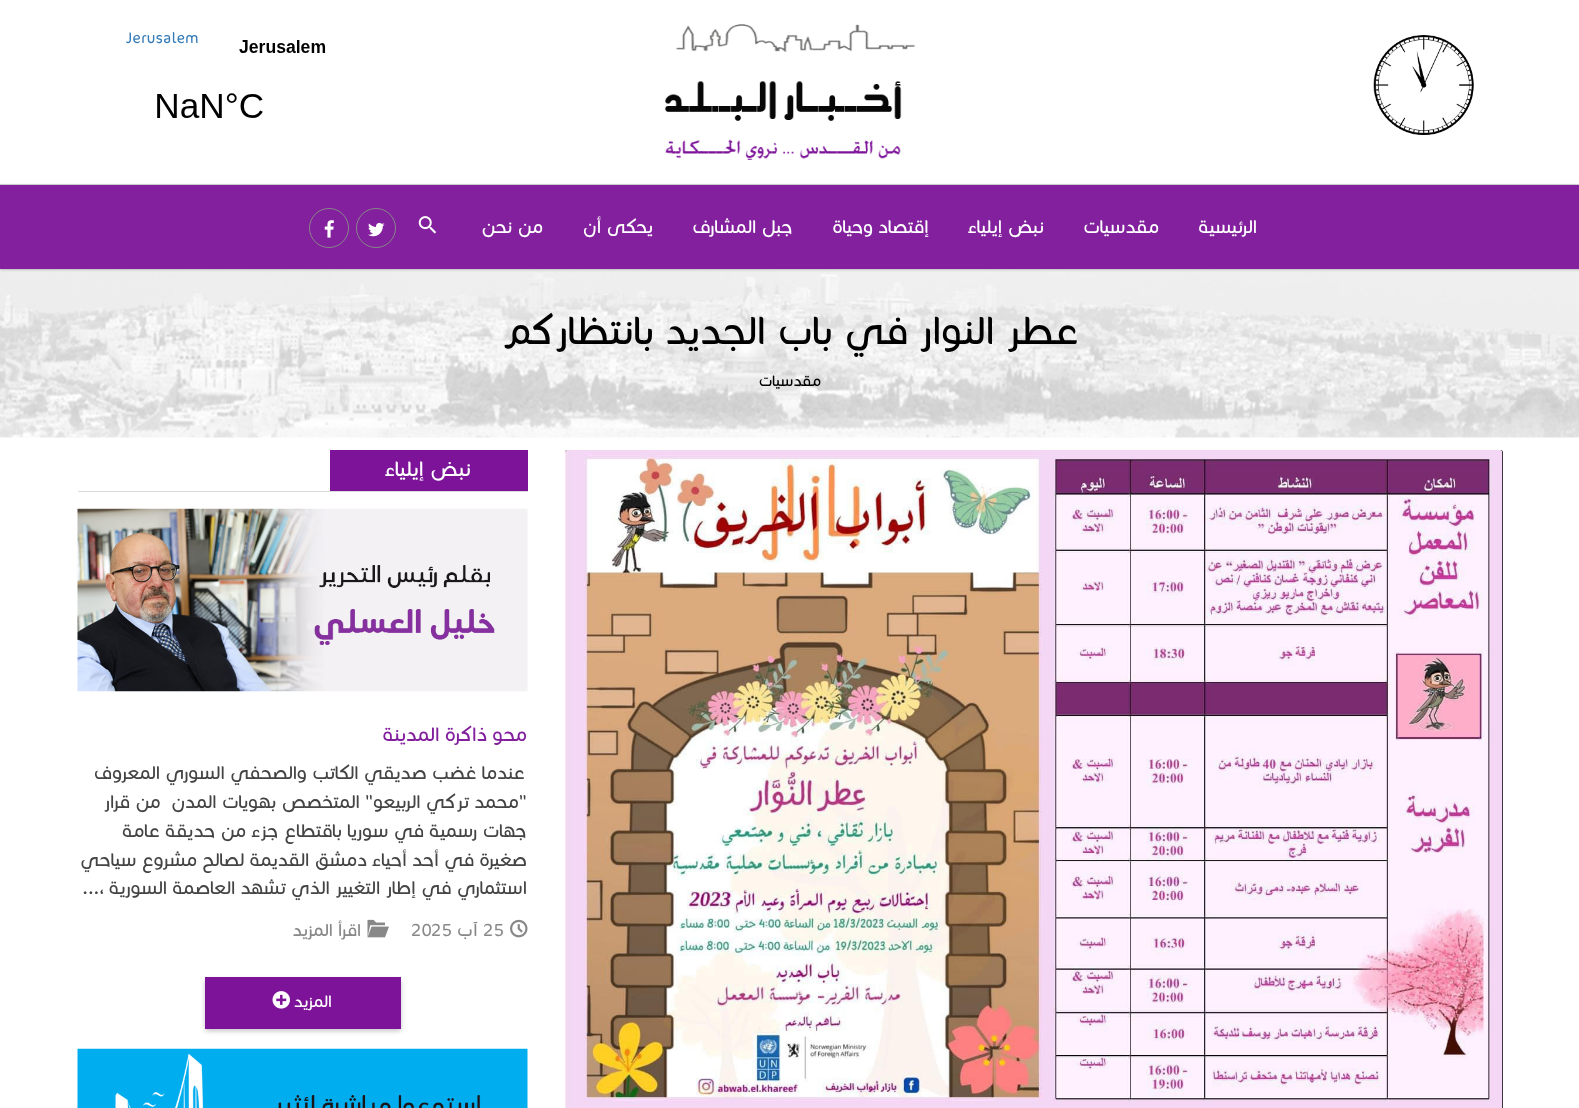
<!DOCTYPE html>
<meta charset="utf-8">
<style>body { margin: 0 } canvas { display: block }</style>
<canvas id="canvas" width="1579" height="1108"></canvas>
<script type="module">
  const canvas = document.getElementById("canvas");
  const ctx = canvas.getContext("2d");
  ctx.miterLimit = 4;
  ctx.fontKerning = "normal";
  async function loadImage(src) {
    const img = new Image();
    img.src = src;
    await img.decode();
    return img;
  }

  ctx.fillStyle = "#ffffff";
  ctx.fillRect(0, 0, 1579, 1108);
  ctx.drawImage(await loadImage("img1.png"), 1373, 35, 101, 100);
  ctx.drawImage(await loadImage("img2.png"), 665, 24, 251, 136);
  ctx.font = "300 17.5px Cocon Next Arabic";
  ctx.fillStyle = "#337ab7";
  ctx.fillText("Jerusalem", 126, 43);
  ctx.drawImage(await loadImage("img3.png"), 157, 40, 169, 78);
  ctx.drawImage(await loadImage("img7.png"), 0, 269, 1579, 169);
  ctx.fillStyle = "rgba(0, 0, 0, 0.21)";
  ctx.filter = "blur(1px)";
  ctx.beginPath();
  ctx.rect(0, 185, 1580, 85);
  ctx.fill();
  ctx.filter = "none";
  ctx.fillStyle = "#83209e";
  ctx.fillRect(0, 185, 1579, 84);
  ctx.fillStyle = "#cccccc";
  ctx.fillRect(0, 184, 1579, 1);
  ctx.direction = "rtl";
  ctx.font = "300 21.25px Cocon Next Arabic";
  ctx.fillStyle = "#ffffff";
  ctx.fillText("الرئيسية", 1257, 233);
  ctx.fillText("مقدسيات", 1159, 233);
  ctx.fillText("نبض إيلياء", 1044, 233);
  ctx.fillText("إقتصاد وحياة", 929, 233);
  ctx.fillText("جبل المشارف", 793, 233);
  ctx.fillText("يحكى أن", 653, 233);
  ctx.fillText("من نحن", 543, 233);
  ctx.drawImage(await loadImage("img4.png"), 418, 216, 19, 18);
  ctx.beginPath();
  ctx.arc(376, 228, 19.5, 0, Math.PI * 2);
  ctx.strokeStyle = "#888888";
  ctx.stroke();
  ctx.drawImage(await loadImage("img5.png"), 368, 222, 17, 15);
  ctx.beginPath();
  ctx.arc(329, 228, 19.5, 0, Math.PI * 2);
  ctx.stroke();
  ctx.drawImage(await loadImage("img6.png"), 324, 220, 10, 18);
  ctx.font = "300 45px Cocon Next Arabic";
  ctx.fillStyle = "#000000";
  ctx.fillText("عطر النوار", 1079, 344);
  ctx.fillText("في باب الجديد بانتظاركم", 908, 344);
  ctx.font = "300 17.5px Cocon Next Arabic";
  ctx.fillText("مقدسيات", 821, 386);
  ctx.beginPath();
  ctx.roundRect(565, 450, 938, 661, 2.5);
  ctx.fill();
  ctx.drawImage(await loadImage("img8.png"), 565, 450, 938, 658);
  ctx.fillStyle = "#dadada";
  ctx.fillRect(78, 491, 450, 1);
  ctx.fillStyle = "#7d1399";
  ctx.fillRect(330, 450, 198, 41);
  ctx.font = "300 24px Cocon Next Arabic";
  ctx.fillStyle = "#ffffff";
  ctx.fillText("نبض إيلياء", 471, 476);
  ctx.drawImage(await loadImage("img9.png"), 77, 508, 451, 184);
  ctx.font = "300 22.5px Cocon Next Arabic";
  ctx.fillStyle = "#83209e";
  ctx.fillText("محو ذاكرة المدينة", 527, 741);
  ctx.font = "300 21.25px Cocon Next Arabic";
  ctx.fillStyle = "#444444";
  ctx.fillText("عندما غضب صديقي الكاتب والصحفي السوري المعروف", 525, 779);
  ctx.fillText("\"محمد تركي الربيعو\" المتخصص بهويات المدن  من قرار", 527, 808);
  ctx.fillText("جهات رسمية في سوريا باقتطاع جزء من حديقة عامة", 527, 837);
  ctx.fillText("صغيرة في أحد أحياء دمشق القديمة لصالح مشروع سياحي", 527, 866);
  ctx.fillText("استثماري في إطار التغيير الذي تشهد العاصمة السورية ،...", 527, 894);
  ctx.drawImage(await loadImage("img10.png"), 510, 919, 18, 19);
  ctx.direction = "ltr";
  ctx.font = "300 20px Cocon Next Arabic";
  ctx.fillStyle = "#888888";
  ctx.fillText("25", 483, 936);
  ctx.direction = "rtl";
  ctx.fillText("آب", 478, 936);
  ctx.direction = "ltr";
  ctx.fillText("2025", 411, 936);
  ctx.drawImage(await loadImage("img11.png"), 367, 919, 22, 19);
  ctx.direction = "rtl";
  ctx.fillText("اقرأ المزيد", 361, 936);
  ctx.fillStyle = "rgba(0, 0, 0, 0.23)";
  ctx.filter = "blur(2.5px)";
  ctx.beginPath();
  ctx.roundRect(205, 980, 196, 51, 2.5);
  ctx.fill();
  ctx.filter = "none";
  ctx.fillStyle = "#7d1399";
  ctx.fillRect(205, 977, 196, 52);
  ctx.font = "300 19px Cocon Next Arabic";
  ctx.fillStyle = "#ffffff";
  ctx.fillText("المزيد", 332, 1007);
  ctx.drawImage(await loadImage("img12.png"), 272, 991, 18, 18);
  ctx.drawImage(await loadImage("img13.png"), 77, 1048, 451, 60);
</script>
